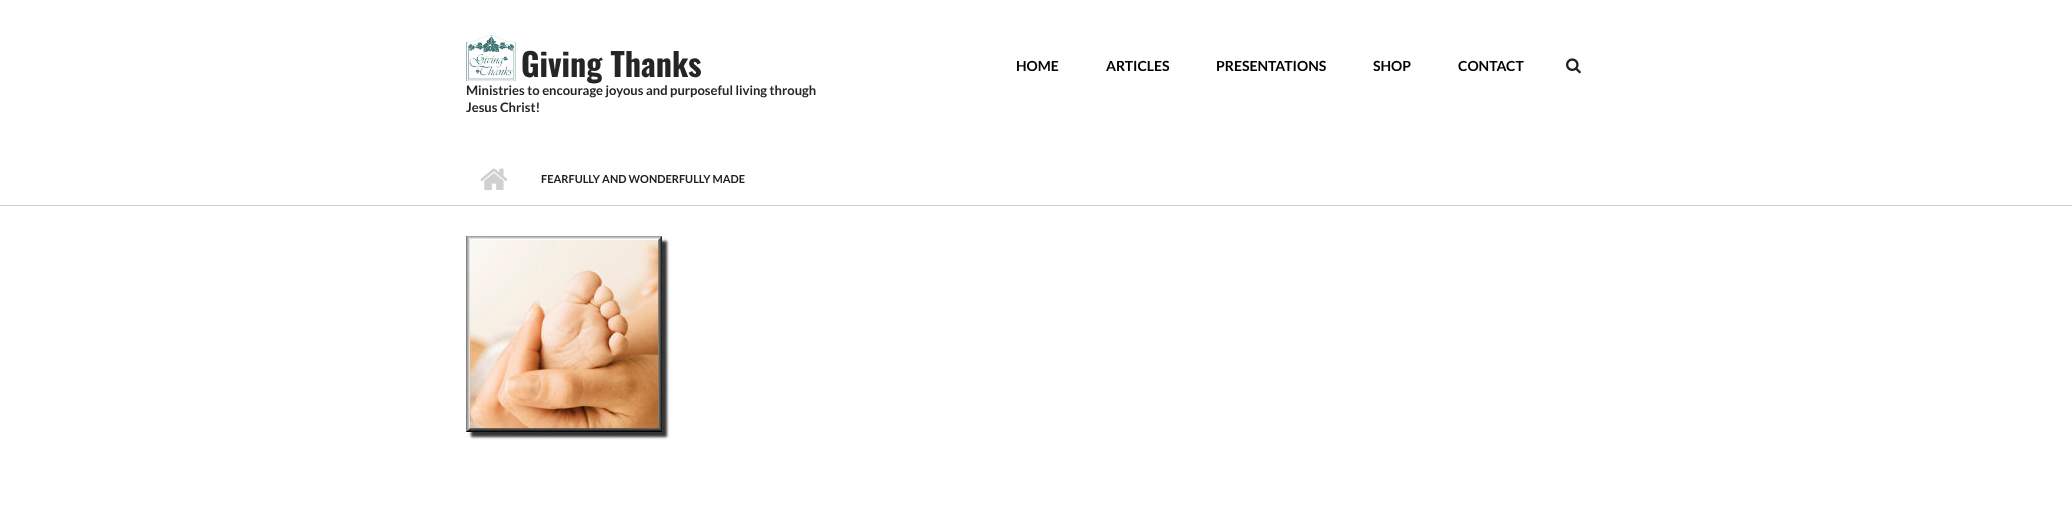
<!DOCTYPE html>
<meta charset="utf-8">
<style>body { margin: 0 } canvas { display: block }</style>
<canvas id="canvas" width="2072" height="520"></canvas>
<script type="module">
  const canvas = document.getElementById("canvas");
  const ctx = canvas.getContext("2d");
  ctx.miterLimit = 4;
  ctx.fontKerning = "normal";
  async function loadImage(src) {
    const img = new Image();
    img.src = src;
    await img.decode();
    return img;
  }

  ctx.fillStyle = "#ffffff";
  ctx.fillRect(0, 0, 2072, 520);
  ctx.drawImage(await loadImage("img1.png"), 466, 35, 50, 46);
  ctx.font = "bold 32px Oswald";
  ctx.fillStyle = "#252525";
  ctx.fillText("Giving Thanks", 521, 77);
  ctx.font = "bold 13px Lato";
  ctx.fillText("Ministries to encourage joyous and purposeful living through", 466, 95);
  ctx.fillText("Jesus Christ!", 466, 112);
  ctx.font = "bold 14px Lato";
  ctx.fillStyle = "#000000";
  ctx.fillText("HOME", 1016, 71);
  ctx.fillText("ARTICLES", 1106, 71);
  ctx.fillText("PRESENTATIONS", 1216, 71);
  ctx.fillText("SHOP", 1373, 71);
  ctx.fillText("CONTACT", 1458, 71);
  ctx.drawImage(await loadImage("img2.png"), 1566, 58, 15, 16);
  ctx.fillStyle = "#cfd0d2";
  ctx.fillRect(0, 205, 2072, 1);
  ctx.drawImage(await loadImage("img3.png"), 480, 168, 28, 22);
  ctx.font = "bold 11px Lato";
  ctx.fillStyle = "#1e1e1e";
  ctx.fillText("FEARFULLY AND WONDERFULLY MADE", 541, 183);
  ctx.drawImage(await loadImage("img4.png"), 466, 236, 204, 204);
</script>
